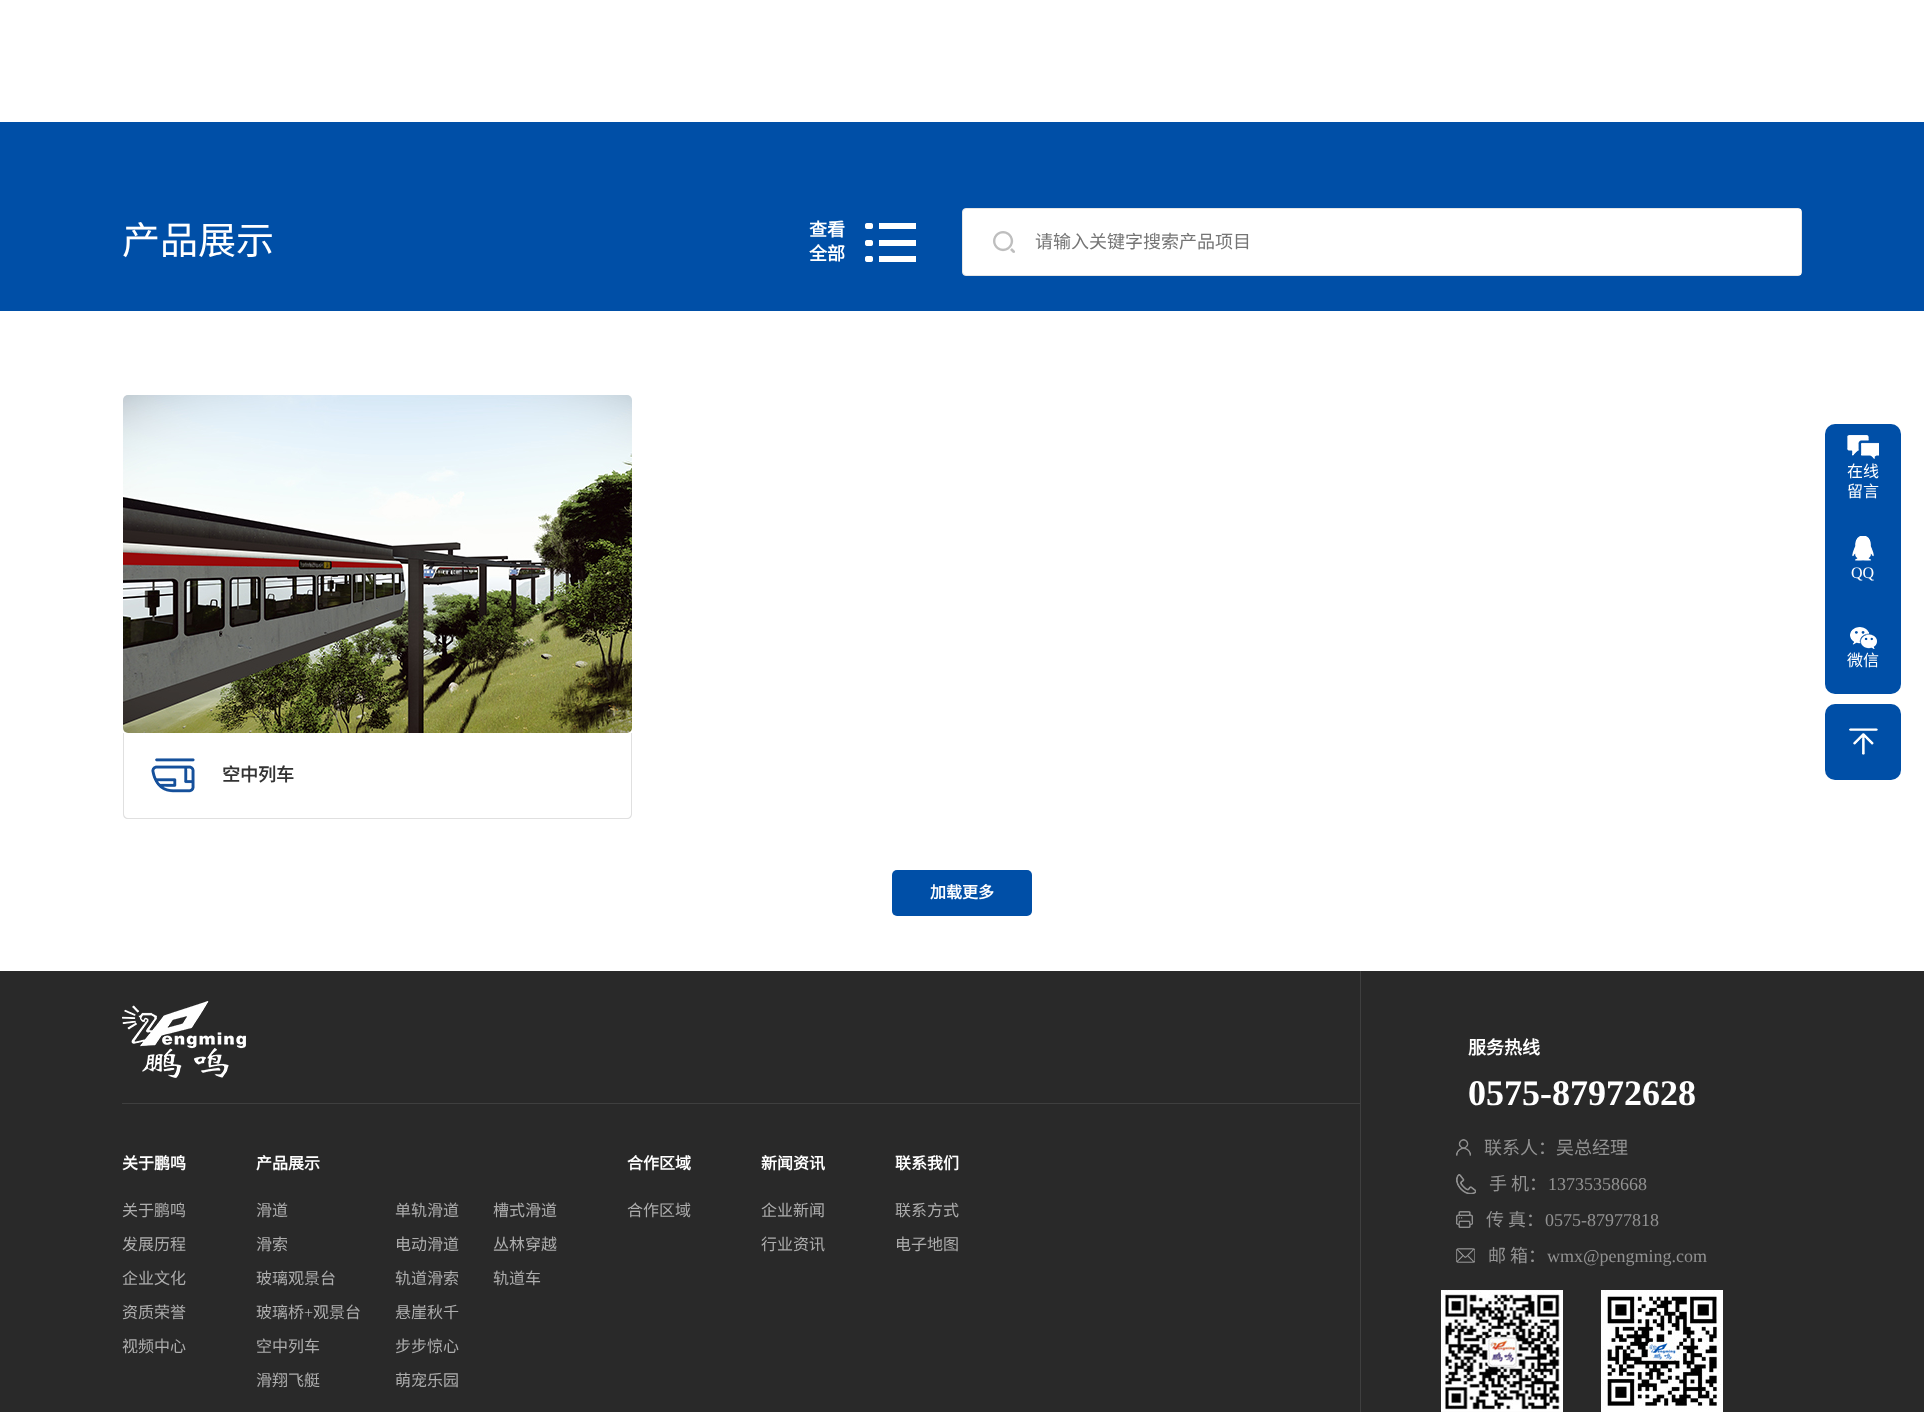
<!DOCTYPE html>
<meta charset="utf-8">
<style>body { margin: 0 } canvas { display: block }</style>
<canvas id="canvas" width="1924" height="1412"></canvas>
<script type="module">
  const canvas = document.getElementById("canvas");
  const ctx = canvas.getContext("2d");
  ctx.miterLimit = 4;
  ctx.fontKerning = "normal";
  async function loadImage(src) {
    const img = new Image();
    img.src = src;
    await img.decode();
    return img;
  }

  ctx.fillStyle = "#ffffff";
  ctx.fillRect(0, 0, 1924, 1412);
  ctx.fillStyle = "#004fa7";
  ctx.fillRect(0, 122, 1924, 189);
  ctx.font = "38px Noto Sans CJK SC";
  ctx.fillStyle = "#ffffff";
  ctx.fillText("产品展示", 122, 254);
  ctx.font = "bold 18px Noto Sans CJK SC";
  ctx.fillText("查看", 809, 236);
  ctx.fillText("全部", 809, 260);
  ctx.drawImage(await loadImage("img1.png"), 865, 223, 51, 39);
  ctx.beginPath();
  ctx.roundRect(962.5, 208.5, 839, 67, 3.5);
  ctx.fill();
  ctx.strokeStyle = "#e6e6e6";
  ctx.stroke();
  ctx.drawImage(await loadImage("img2.png"), 993, 231, 22, 22);
  ctx.fillRect(1799, 209, 2, 66);
  ctx.font = "18px Noto Sans CJK SC";
  ctx.fillStyle = "#757575";
  ctx.fillText("请输入关键字搜索产品项目", 1035, 248);
  ctx.fillStyle = "#004fa7";
  ctx.beginPath();
  ctx.roundRect(1825, 424, 76, 90, [10, 10, 0, 0]);
  ctx.fill();
  ctx.drawImage(await loadImage("img3.png"), 1847, 435, 32, 24);
  ctx.font = "16px Noto Sans CJK SC";
  ctx.fillStyle = "#ffffff";
  ctx.fillText("在线", 1847, 477);
  ctx.fillText("留言", 1847, 497);
  ctx.fillStyle = "#004fa7";
  ctx.fillRect(1825, 514, 76, 90);
  ctx.drawImage(await loadImage("img4.png"), 1852, 536, 22, 25);
  ctx.font = "16px Liberation Serif";
  ctx.fillStyle = "#ffffff";
  ctx.fillText("QQ", 1851, 578);
  ctx.fillStyle = "#004fa7";
  ctx.beginPath();
  ctx.roundRect(1825, 604, 76, 90, [0, 0, 10, 10]);
  ctx.fill();
  ctx.drawImage(await loadImage("img5.png"), 1850, 627, 27, 22);
  ctx.font = "16px Noto Sans CJK SC";
  ctx.fillStyle = "#ffffff";
  ctx.fillText("微信", 1847, 666);
  ctx.fillStyle = "#004fa7";
  ctx.beginPath();
  ctx.roundRect(1825, 704, 76, 76, 10);
  ctx.fill();
  ctx.drawImage(await loadImage("img6.png"), 1849, 728, 29, 27);
  ctx.drawImage(await loadImage("img7.png"), 123, 395, 509, 338);
  ctx.fillStyle = "#e0e0e0";
  ctx.beginPath();
  ctx.moveTo(123, 733);
  ctx.lineTo(632, 733);
  ctx.lineTo(632, 814);
  ctx.bezierCurveTo(632, 817, 630, 819, 627, 819);
  ctx.lineTo(128, 819);
  ctx.bezierCurveTo(125, 819, 123, 817, 123, 814);
  ctx.closePath();
  ctx.moveTo(124, 733);
  ctx.lineTo(631, 733);
  ctx.lineTo(631, 814);
  ctx.bezierCurveTo(631, 816, 629, 818, 627, 818);
  ctx.lineTo(128, 818);
  ctx.bezierCurveTo(126, 818, 124, 816, 124, 814);
  ctx.closePath();
  ctx.fill("evenodd");
  ctx.drawImage(await loadImage("img8.png"), 151, 758, 44, 35);
  ctx.font = "bold 18px Noto Sans CJK SC";
  ctx.fillStyle = "#333333";
  ctx.fillText("空中列车", 222, 781);
  ctx.fillStyle = "#004fa7";
  ctx.beginPath();
  ctx.roundRect(892, 870, 140, 46, 5);
  ctx.fill();
  ctx.font = "bold 16px Noto Sans CJK SC";
  ctx.fillStyle = "#ffffff";
  ctx.fillText("加载更多", 930, 898);
  ctx.fillStyle = "#292929";
  ctx.fillRect(0, 971, 1924, 441);
  ctx.drawImage(await loadImage("img9.png"), 122, 1001, 124, 77);
  ctx.fillStyle = "#3f3f3f";
  ctx.fillRect(122, 1103, 1238, 1);
  ctx.fillStyle = "#ffffff";
  ctx.fillText("关于鹏鸣", 122, 1169);
  ctx.font = "16px Noto Sans CJK SC";
  ctx.fillStyle = "#adadad";
  ctx.fillText("关于鹏鸣", 122, 1216);
  ctx.fillText("发展历程", 122, 1250);
  ctx.fillText("企业文化", 122, 1284);
  ctx.fillText("资质荣誉", 122, 1318);
  ctx.fillText("视频中心", 122, 1352);
  ctx.font = "bold 16px Noto Sans CJK SC";
  ctx.fillStyle = "#ffffff";
  ctx.fillText("产品展示", 256, 1169);
  ctx.font = "16px Noto Sans CJK SC";
  ctx.fillStyle = "#adadad";
  ctx.fillText("滑道", 256, 1216);
  ctx.fillText("滑索", 256, 1250);
  ctx.fillText("玻璃观景台", 256, 1284);
  ctx.fillText("玻璃桥", 256, 1318);
  ctx.font = "16px Liberation Serif";
  ctx.fillText("+", 304, 1318);
  ctx.font = "16px Noto Sans CJK SC";
  ctx.fillText("观景台", 313, 1318);
  ctx.fillText("空中列车", 256, 1352);
  ctx.fillText("滑翔飞艇", 256, 1386);
  ctx.fillText("单轨滑道", 395, 1216);
  ctx.fillText("电动滑道", 395, 1250);
  ctx.fillText("轨道滑索", 395, 1284);
  ctx.fillText("悬崖秋千", 395, 1318);
  ctx.fillText("步步惊心", 395, 1352);
  ctx.fillText("萌宠乐园", 395, 1386);
  ctx.fillText("槽式滑道", 493, 1216);
  ctx.fillText("丛林穿越", 493, 1250);
  ctx.fillText("轨道车", 493, 1284);
  ctx.font = "bold 16px Noto Sans CJK SC";
  ctx.fillStyle = "#ffffff";
  ctx.fillText("合作区域", 627, 1169);
  ctx.font = "16px Noto Sans CJK SC";
  ctx.fillStyle = "#adadad";
  ctx.fillText("合作区域", 627, 1216);
  ctx.font = "bold 16px Noto Sans CJK SC";
  ctx.fillStyle = "#ffffff";
  ctx.fillText("新闻资讯", 761, 1169);
  ctx.font = "16px Noto Sans CJK SC";
  ctx.fillStyle = "#adadad";
  ctx.fillText("企业新闻", 761, 1216);
  ctx.fillText("行业资讯", 761, 1250);
  ctx.font = "bold 16px Noto Sans CJK SC";
  ctx.fillStyle = "#ffffff";
  ctx.fillText("联系我们", 895, 1169);
  ctx.font = "16px Noto Sans CJK SC";
  ctx.fillStyle = "#adadad";
  ctx.fillText("联系方式", 895, 1216);
  ctx.fillText("电子地图", 895, 1250);
  ctx.fillStyle = "#3f3f3f";
  ctx.fillRect(1360, 971, 1, 441);
  ctx.font = "bold 18px Noto Sans CJK SC";
  ctx.fillStyle = "#ffffff";
  ctx.fillText("服务热线", 1468, 1054);
  ctx.font = "bold 36px Liberation Serif";
  ctx.fillText("0575-87972628", 1468, 1105);
  ctx.drawImage(await loadImage("img10.png"), 1456, 1139, 15, 17);
  ctx.font = "18px Noto Sans CJK SC";
  ctx.fillStyle = "#929292";
  ctx.fillText("联系人：吴总经理", 1484, 1154);
  ctx.drawImage(await loadImage("img11.png"), 1456, 1174, 20, 20);
  ctx.fillText("手 机：", 1489, 1190);
  ctx.font = "18px Liberation Serif";
  ctx.fillText("13735358668", 1548, 1190);
  ctx.drawImage(await loadImage("img12.png"), 1456, 1211, 17, 17);
  ctx.font = "18px Noto Sans CJK SC";
  ctx.fillText("传 真：", 1486, 1226);
  ctx.font = "18px Liberation Serif";
  ctx.fillText("0575-87977818", 1545, 1226);
  ctx.drawImage(await loadImage("img13.png"), 1456, 1248, 19, 15);
  ctx.font = "18px Noto Sans CJK SC";
  ctx.fillText("邮 箱：", 1488, 1262);
  ctx.font = "18px Liberation Serif";
  ctx.fillText("wmx@pengming.com", 1547, 1262);
  ctx.drawImage(await loadImage("img14.png"), 1441, 1290, 122, 122);
  ctx.drawImage(await loadImage("img15.png"), 1601, 1290, 122, 122);
</script>
